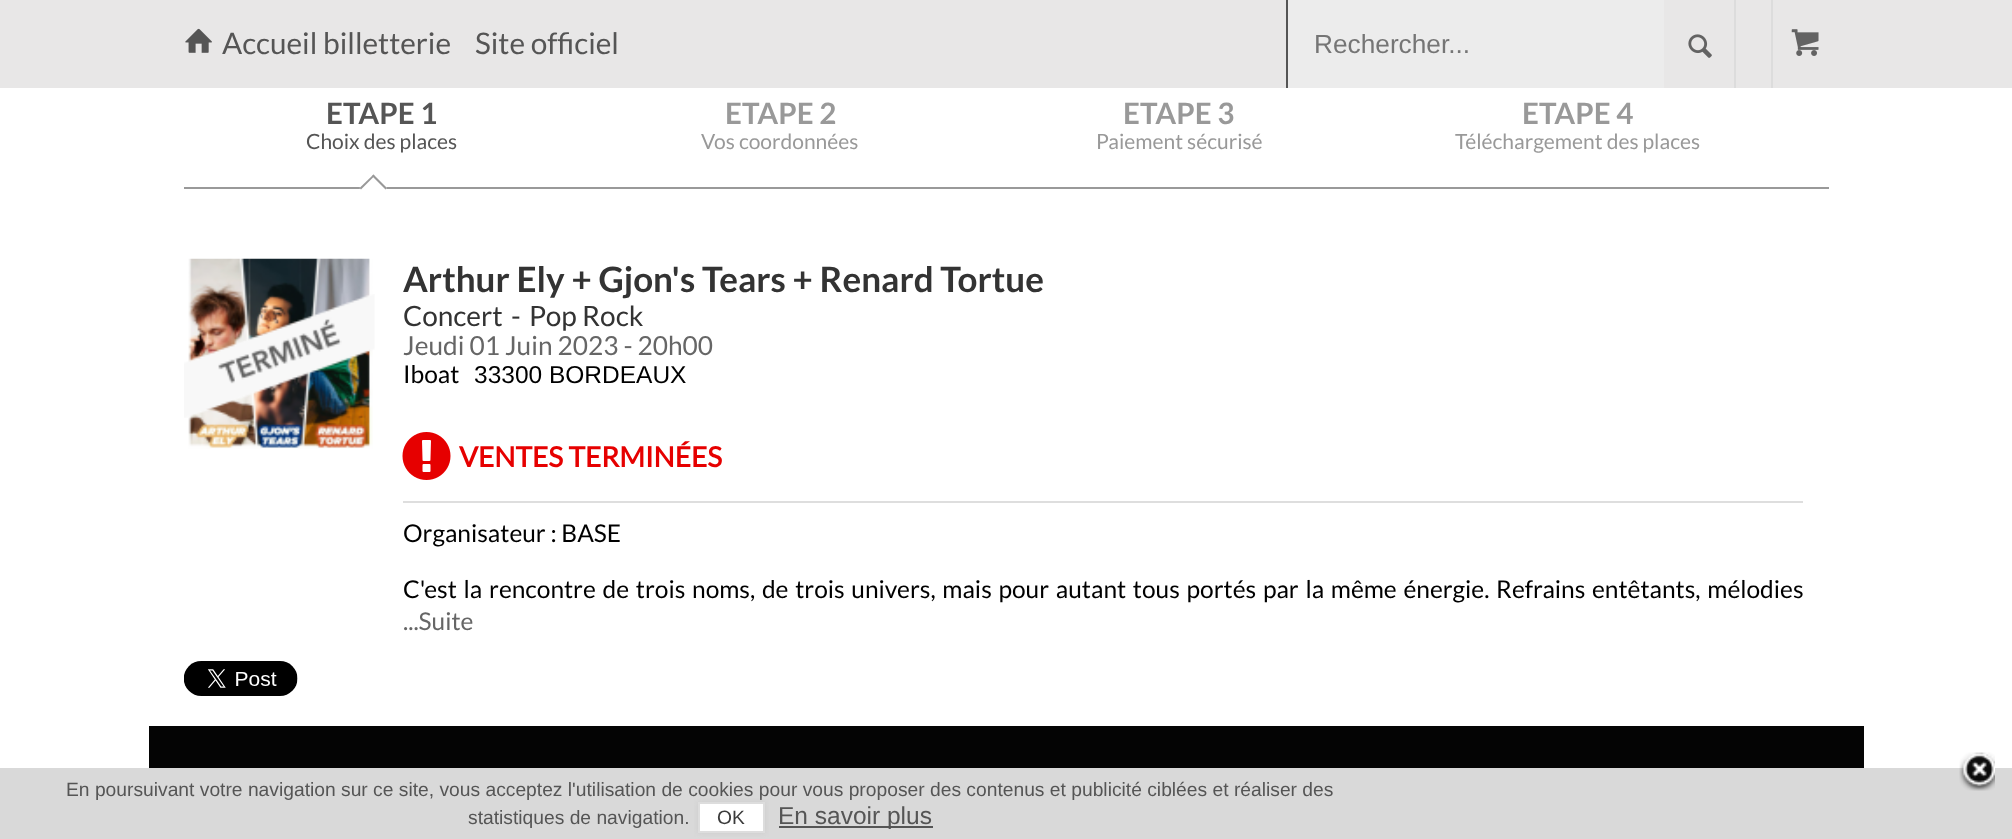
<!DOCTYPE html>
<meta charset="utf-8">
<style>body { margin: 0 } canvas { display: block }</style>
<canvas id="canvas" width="2012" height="839"></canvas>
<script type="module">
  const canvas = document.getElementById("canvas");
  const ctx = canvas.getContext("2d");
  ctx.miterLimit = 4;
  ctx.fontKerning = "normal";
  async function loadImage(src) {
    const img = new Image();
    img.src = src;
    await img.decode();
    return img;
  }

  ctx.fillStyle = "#ffffff";
  ctx.fillRect(0, 0, 2012, 839);
  ctx.fillStyle = "#e8e7e7";
  ctx.fillRect(0, 0, 2012, 88);
  ctx.drawImage(await loadImage("img1.png"), 185, 28, 27, 25);
  ctx.font = "29.75px Lato";
  ctx.fillStyle = "#555555";
  ctx.fillText("Accueil billetterie", 222, 54);
  ctx.fillText("Site officiel", 475, 54);
  ctx.fillRect(1286, 0, 2, 88);
  ctx.fillStyle = "#ececec";
  ctx.fillRect(1288, 0, 376, 88);
  ctx.font = "26.25px Liberation Sans";
  ctx.fillStyle = "#757575";
  ctx.fillText("Rechercher...", 1314, 53);
  ctx.drawImage(await loadImage("img2.png"), 1688, 34, 24, 24);
  ctx.fillStyle = "#dcdcdc";
  ctx.fillRect(1734, 0, 2, 88);
  ctx.fillRect(1771, 0, 2, 88);
  ctx.drawImage(await loadImage("img3.png"), 1791, 29, 28, 27);
  ctx.fillStyle = "#999999";
  ctx.fillRect(184, 187, 1645, 2);
  ctx.font = "bold 29.5px Lato";
  ctx.fillStyle = "#555555";
  ctx.fillText("ETAPE 1", 326, 124);
  ctx.font = "21px Lato";
  ctx.fillText("Choix des places", 306, 149);
  ctx.fillStyle = "#ffffff";
  ctx.beginPath();
  ctx.moveTo(373.5, 174.5);
  ctx.lineTo(387, 188);
  ctx.lineTo(373.5, 201.5);
  ctx.lineTo(359.5, 188);
  ctx.closePath();
  ctx.fill();
  ctx.fillStyle = "#999999";
  ctx.beginPath();
  ctx.moveTo(373.5, 174.5);
  ctx.lineTo(387, 188);
  ctx.lineTo(385.5, 189.5);
  ctx.lineTo(372, 176);
  ctx.closePath();
  ctx.fill();
  ctx.beginPath();
  ctx.moveTo(373.5, 174.5);
  ctx.lineTo(374.5, 176);
  ctx.lineTo(361, 189.5);
  ctx.lineTo(359.5, 188);
  ctx.closePath();
  ctx.fill();
  ctx.font = "bold 29.5px Lato";
  ctx.fillText("ETAPE 2", 725, 124);
  ctx.font = "21px Lato";
  ctx.fillText("Vos coordonnées", 701, 149);
  ctx.font = "bold 29.5px Lato";
  ctx.fillText("ETAPE 3", 1123, 124);
  ctx.font = "21px Lato";
  ctx.fillText("Paiement sécurisé", 1096, 149);
  ctx.font = "bold 29.5px Lato";
  ctx.fillText("ETAPE 4", 1522, 124);
  ctx.font = "21px Lato";
  ctx.fillText("Téléchargement des places", 1455, 149);
  ctx.drawImage(await loadImage("img4.png"), 188, 258, 185, 191);
  ctx.drawImage(await loadImage("img5.png"), 184, 294, 191, 124);
  ctx.font = "bold 35px Lato";
  ctx.fillStyle = "#333333";
  ctx.fillText("Arthur Ely + Gjon's Tears + Renard Tortue", 403, 292);
  ctx.font = "28px Lato";
  ctx.fillText("Concert", 403, 326);
  ctx.fillText("-", 511, 326);
  ctx.fillText("Pop Rock", 529, 326);
  ctx.font = "26.25px Lato";
  ctx.fillStyle = "#666666";
  ctx.fillText("Jeudi 01 Juin 2023 - 20h00", 403, 355);
  ctx.font = "24.5px Lato";
  ctx.fillStyle = "#000000";
  ctx.fillText("Iboat", 403, 383);
  ctx.font = "24.5px Liberation Sans";
  ctx.fillText("33300 BORDEAUX", 474, 383);
  ctx.fillStyle = "#dedede";
  ctx.fillRect(403, 501, 1400, 2);
  ctx.drawImage(await loadImage("img6.png"), 402, 432, 49, 48);
  ctx.font = "bold 28px 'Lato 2'";
  ctx.fillStyle = "#e60000";
  ctx.fillText("VENTES TERMINÉES", 459, 467);
  ctx.font = "24.5px Lato";
  ctx.fillStyle = "#000000";
  ctx.fillText("Organisateur : BASE", 403, 542);
  ctx.wordSpacing = "2px";
  ctx.fillText("C'est la rencontre de trois noms, de trois univers, mais pour autant tous portés par la même énergie. Refrains entêtants, mélodies", 403, 598);
  ctx.wordSpacing = "0px";
  ctx.fillStyle = "#666666";
  ctx.fillText("...Suite", 403, 630);
  ctx.drawImage(await loadImage("img7.png"), 184, 661, 114, 35);
  ctx.fillStyle = "#040404";
  ctx.fillRect(149, 726, 1715, 42);
  ctx.fillStyle = "#d9d9d9";
  ctx.fillRect(0, 768, 2012, 71);
  ctx.drawImage(await loadImage("img8.png"), 1959, 752, 36, 39);
  ctx.font = "19.25px Liberation Sans";
  ctx.fillStyle = "#555555";
  ctx.fillText("En poursuivant votre navigation sur ce site, vous acceptez l'utilisation de cookies pour vous proposer des contenus et publicité ciblées et réaliser des", 66, 796);
  ctx.fillText("statistiques de navigation.", 468, 824);
  ctx.fillStyle = "#cccccc";
  ctx.filter = "blur(2px)";
  ctx.beginPath();
  ctx.rect(698, 802, 67, 31);
  ctx.fill();
  ctx.filter = "none";
  ctx.fillStyle = "#ffffff";
  ctx.beginPath();
  ctx.rect(699, 803, 65, 29);
  ctx.fill();
  ctx.strokeStyle = "#dddddd";
  ctx.lineWidth = 2;
  ctx.stroke();
  ctx.fillStyle = "#3b3b3b";
  ctx.fillText("OK", 717, 824);
  ctx.fillStyle = "#555555";
  ctx.fillRect(779, 826, 154, 2);
  ctx.font = "24.5px Liberation Sans";
  ctx.fillText("En savoir plus", 778, 824);
</script>
